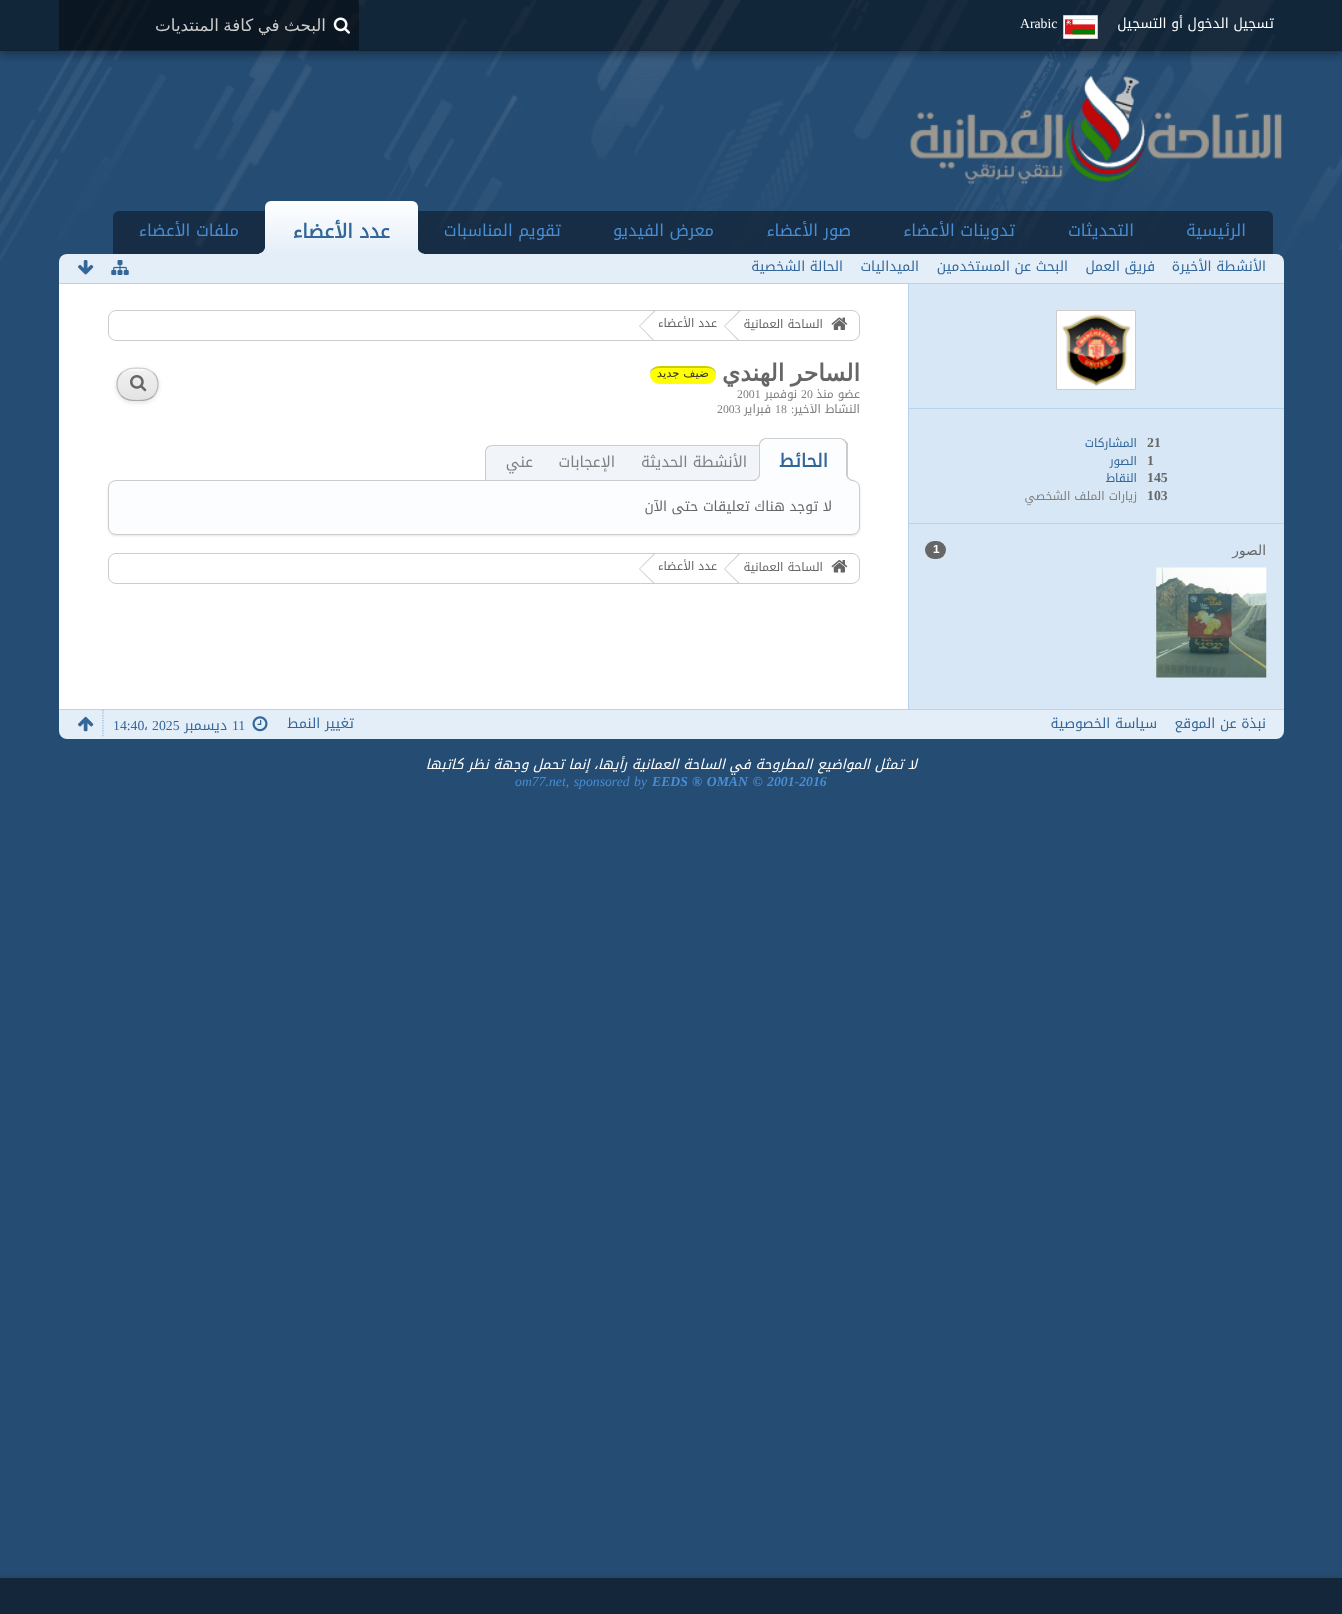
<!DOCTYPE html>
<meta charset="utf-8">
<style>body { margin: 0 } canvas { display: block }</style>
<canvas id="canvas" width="1342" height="1614"></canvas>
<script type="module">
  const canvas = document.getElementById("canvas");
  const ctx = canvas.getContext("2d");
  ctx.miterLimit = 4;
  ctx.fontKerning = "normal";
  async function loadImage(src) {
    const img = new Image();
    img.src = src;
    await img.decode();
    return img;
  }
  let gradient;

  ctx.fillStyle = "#254c73";
  ctx.fillRect(0, 0, 1342, 1614);
  ctx.drawImage(await loadImage("img1.png"), 0, 0, 1342, 261);
  ctx.save();
  ctx.beginPath();
  ctx.rect(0, 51, 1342, 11);
  ctx.clip();
  ctx.fillStyle = "rgba(0, 0, 0, 0.3)";
  ctx.filter = "blur(4.5px)";
  ctx.beginPath();
  ctx.rect(0, 4, 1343, 51);
  ctx.fill();
  ctx.filter = "none";
  ctx.restore();
  ctx.fillStyle = "rgba(0, 0, 0, 0.5)";
  ctx.fillRect(0, 0, 1342, 51);
  ctx.fillStyle = "rgba(0, 0, 0, 0.1)";
  ctx.fillRect(0, 50, 1342, 1);
  ctx.direction = "rtl";
  ctx.font = "13.75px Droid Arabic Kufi";
  ctx.fillStyle = "#ffffff";
  ctx.fillText("تسجيل الدخول أو التسجيل", 1274, 28);
  ctx.beginPath();
  ctx.rect(1063.5, 15.5, 34, 23);
  ctx.fill();
  ctx.strokeStyle = "#cccccc";
  ctx.stroke();
  ctx.drawImage(await loadImage("img2.png"), 1065, 19, 30, 16);
  ctx.direction = "ltr";
  ctx.font = "13.75px Liberation Serif";
  ctx.fillText("Arabic", 1020, 28);
  ctx.fillStyle = "rgba(0, 0, 0, 0.4)";
  ctx.fillRect(59, 0, 300, 50);
  ctx.drawImage(await loadImage("img3.png"), 333, 17, 17, 17);
  ctx.save();
  ctx.beginPath();
  ctx.rect(74, 16, 252, 19);
  ctx.clip();
  ctx.wordSpacing = "-1px";
  ctx.direction = "rtl";
  ctx.font = "16.75px DejaVu Sans";
  ctx.fillStyle = "#cccccc";
  ctx.fillText("البحث في كافة المنتديات", 326, 31);
  ctx.restore();
  ctx.drawImage(await loadImage("img4.png"), 910, 75, 372, 109);
  ctx.beginPath();
  ctx.roundRect(113, 211, 1160, 43, [6, 6, 0, 0]);
  ctx.fill();
  ctx.direction = "rtl";
  ctx.font = "16.5px Droid Arabic Kufi";
  ctx.fillStyle = "#488ed4";
  ctx.fillText("الرئيسية", 1246, 236);
  ctx.fillText("التحديثات", 1134, 236);
  ctx.fillText("تدوينات الأعضاء", 1015, 236);
  ctx.fillText("صور الأعضاء", 851, 236);
  ctx.fillText("معرض الفيديو", 714, 236);
  ctx.fillText("تقويم المناسبات", 561, 236);
  gradient = ctx.createLinearGradient(341, 201, 341, 254);
  gradient.addColorStop(0, "#ffffff");
  gradient.addColorStop(1, "#e4eef8");
  ctx.fillStyle = gradient;
  ctx.beginPath();
  ctx.roundRect(265, 201, 153, 53, [6, 6, 0, 0]);
  ctx.fill();
  ctx.font = "bold 19.25px Droid Arabic Kufi";
  ctx.fillStyle = "#336699";
  ctx.fillText("عدد الأعضاء", 390, 238);
  ctx.fillStyle = "#e4eef8";
  ctx.beginPath();
  ctx.roundRect(59, 254, 1225, 30, [8, 8, 0, 0]);
  ctx.fill();
  ctx.beginPath();
  ctx.moveTo(415, 248);
  ctx.bezierCurveTo(415, 253, 419.5, 256, 424, 256);
  ctx.lineTo(424, 253.5);
  ctx.bezierCurveTo(421, 253.5, 418.5, 251, 417.5, 248);
  ctx.closePath();
  ctx.fill();
  ctx.beginPath();
  ctx.moveTo(259, 253.5);
  ctx.lineTo(259, 256);
  ctx.bezierCurveTo(263.5, 256, 268, 253, 268, 248);
  ctx.lineTo(265, 248);
  ctx.bezierCurveTo(264, 251, 262, 253, 259, 253.5);
  ctx.closePath();
  ctx.fill();
  ctx.font = "16.5px Droid Arabic Kufi";
  ctx.fillStyle = "#488ed4";
  ctx.fillText("ملفات الأعضاء", 239, 236);
  ctx.fillStyle = "#b8d3ed";
  ctx.fillRect(59, 283, 1225, 1);
  ctx.font = "13.75px Droid Arabic Kufi";
  ctx.fillStyle = "#336699";
  ctx.fillText("الأنشطة الأخيرة", 1266, 271);
  ctx.fillText("فريق العمل", 1155, 271);
  ctx.fillText("البحث عن المستخدمين", 1068, 271);
  ctx.fillText("الميداليات", 919, 271);
  ctx.fillText("الحالة الشخصية", 843, 271);
  ctx.drawImage(await loadImage("img5.png"), 111, 260, 18, 15);
  ctx.drawImage(await loadImage("img6.png"), 78, 260, 16, 15);
  ctx.fillStyle = "#ffffff";
  ctx.fillRect(59, 284, 849, 425);
  ctx.fillStyle = "#d8e7f5";
  ctx.fillRect(909, 284, 375, 425);
  ctx.fillStyle = "#b8d3ed";
  ctx.fillRect(908, 284, 1, 425);
  ctx.fillRect(908, 408, 376, 1);
  ctx.fillStyle = "#ffffff";
  ctx.beginPath();
  ctx.rect(1056.5, 310.5, 79, 79);
  ctx.fill();
  ctx.stroke();
  ctx.drawImage(await loadImage("img7.png"), 1062, 314, 69, 73);
  ctx.fillStyle = "#b8d3ed";
  ctx.fillRect(908, 523, 376, 1);
  ctx.direction = "ltr";
  ctx.font = "bold 13.75px Liberation Serif";
  ctx.fillStyle = "#666666";
  ctx.fillText("21", 1147, 447);
  ctx.direction = "rtl";
  ctx.font = "11.75px Droid Arabic Kufi";
  ctx.fillStyle = "#336699";
  ctx.fillText("المشاركات", 1137, 447);
  ctx.direction = "ltr";
  ctx.font = "bold 13.75px Liberation Serif";
  ctx.fillStyle = "#666666";
  ctx.fillText("1", 1147, 465);
  ctx.direction = "rtl";
  ctx.font = "11.75px Droid Arabic Kufi";
  ctx.fillStyle = "#336699";
  ctx.fillText("الصور", 1137, 465);
  ctx.direction = "ltr";
  ctx.font = "bold 13.75px Liberation Serif";
  ctx.fillStyle = "#666666";
  ctx.fillText("145", 1147, 482);
  ctx.direction = "rtl";
  ctx.font = "11.75px Droid Arabic Kufi";
  ctx.fillStyle = "#336699";
  ctx.fillText("النقاط", 1137, 482);
  ctx.direction = "ltr";
  ctx.font = "bold 13.75px Liberation Serif";
  ctx.fillStyle = "#666666";
  ctx.fillText("103", 1147, 500);
  ctx.direction = "rtl";
  ctx.font = "11.75px Droid Arabic Kufi";
  ctx.fillStyle = "#808080";
  ctx.fillText("زيارات الملف الشخصي", 1137, 500);
  ctx.font = "13.75px DejaVu Sans";
  ctx.fillStyle = "#666666";
  ctx.fillText("الصور", 1266, 555);
  ctx.beginPath();
  ctx.roundRect(925, 541, 21, 18, 9);
  ctx.fill();
  ctx.direction = "ltr";
  ctx.font = "bold 11.75px Liberation Sans";
  ctx.fillStyle = "#ffffff";
  ctx.fillText("1", 933, 553);
  ctx.drawImage(await loadImage("img8.png"), 1156, 567, 111, 111);
  ctx.beginPath();
  ctx.roundRect(108.5, 310.5, 751, 30, 7.5);
  ctx.stroke();
  ctx.drawImage(await loadImage("img9.png"), 831, 317, 17, 13);
  ctx.direction = "rtl";
  ctx.font = "11.75px Droid Arabic Kufi";
  ctx.fillStyle = "#666666";
  ctx.fillText("الساحة العمانية", 823, 328);
  ctx.fillStyle = "#cccccc";
  ctx.beginPath();
  ctx.moveTo(737.5, 340);
  ctx.lineTo(724, 326);
  ctx.lineTo(739, 311);
  ctx.lineTo(742.5, 311);
  ctx.lineTo(742.5, 340);
  ctx.closePath();
  ctx.fill();
  ctx.fillStyle = "#ffffff";
  ctx.beginPath();
  ctx.moveTo(739, 340);
  ctx.lineTo(725, 326);
  ctx.lineTo(740.5, 311);
  ctx.lineTo(744, 311);
  ctx.lineTo(744, 340);
  ctx.closePath();
  ctx.fill();
  ctx.fillStyle = "#666666";
  ctx.fillText("عدد الأعضاء", 717, 327);
  ctx.fillStyle = "#cccccc";
  ctx.beginPath();
  ctx.moveTo(652.5, 340);
  ctx.lineTo(639, 326);
  ctx.lineTo(654, 311);
  ctx.lineTo(657.5, 311);
  ctx.lineTo(657.5, 340);
  ctx.closePath();
  ctx.fill();
  ctx.fillStyle = "#ffffff";
  ctx.beginPath();
  ctx.moveTo(654, 340);
  ctx.lineTo(640, 326);
  ctx.lineTo(655.5, 311);
  ctx.lineTo(659, 311);
  ctx.lineTo(659, 340);
  ctx.closePath();
  ctx.fill();
  ctx.wordSpacing = "-1px";
  ctx.font = "bold 23.5px DejaVu Sans";
  ctx.fillStyle = "#666666";
  ctx.fillText("الساحر الهندي", 860, 381);
  ctx.fillStyle = "#ffff00";
  ctx.beginPath();
  ctx.roundRect(650, 366, 66, 18, 9);
  ctx.fill();
  ctx.fillStyle = "rgba(0, 0, 0, 0.2)";
  ctx.beginPath();
  ctx.moveTo(659, 368);
  ctx.lineTo(708, 368);
  ctx.bezierCurveTo(712, 368, 716, 371, 716, 375);
  ctx.bezierCurveTo(717, 365, 706, 366, 699, 366);
  ctx.lineTo(667, 366);
  ctx.bezierCurveTo(660, 366, 649, 365, 650, 375);
  ctx.bezierCurveTo(650, 371, 654, 368, 659, 368);
  ctx.closePath();
  ctx.fill();
  ctx.wordSpacing = "0px";
  ctx.font = "11.75px DejaVu Sans";
  ctx.fillStyle = "#333333";
  ctx.fillText("ضيف جديد", 709, 377);
  ctx.fillStyle = "rgba(0, 0, 0, 0.1)";
  ctx.filter = "blur(2px)";
  ctx.beginPath();
  ctx.roundRect(116, 369, 43, 34, 17);
  ctx.fill();
  ctx.filter = "none";
  ctx.save();
  ctx.beginPath();
  ctx.roundRect(116, 368, 43, 33, 16.5);
  ctx.clip();
  gradient = ctx.createLinearGradient(138, 338, 138, 369);
  gradient.addColorStop(0, "#fdfdfd");
  gradient.addColorStop(0.08, "#f0f0f0");
  gradient.addColorStop(1, "#e3e3e3");
  ctx.fillStyle = gradient;
  ctx.fillRect(127, 368, 21, 1);
  gradient = ctx.createLinearGradient(138, 369, 138, 400);
  gradient.addColorStop(0, "#fdfdfd");
  gradient.addColorStop(0.08, "#f0f0f0");
  gradient.addColorStop(1, "#e3e3e3");
  ctx.fillStyle = gradient;
  ctx.fillRect(116, 369, 43, 31);
  ctx.restore();
  ctx.beginPath();
  ctx.moveTo(121.5, 373);
  ctx.bezierCurveTo(126, 368.5, 131.5, 368, 137.5, 368);
  ctx.bezierCurveTo(143.5, 368, 149, 368.5, 153.5, 373);
  ctx.strokeStyle = "#cdcdcd";
  ctx.lineWidth = 1.2;
  ctx.stroke();
  ctx.beginPath();
  ctx.moveTo(153.5, 373);
  ctx.bezierCurveTo(159.5, 379, 159.5, 389.5, 153.5, 396);
  ctx.strokeStyle = "#bbbbbb";
  ctx.stroke();
  ctx.beginPath();
  ctx.moveTo(153.5, 396);
  ctx.bezierCurveTo(149, 400.5, 143.5, 400.5, 137.5, 400.5);
  ctx.bezierCurveTo(131.5, 400.5, 126, 400.5, 121.5, 396);
  ctx.strokeStyle = "#a9a9a9";
  ctx.stroke();
  ctx.beginPath();
  ctx.moveTo(121.5, 396);
  ctx.bezierCurveTo(115.5, 389.5, 115.5, 379, 121.5, 373);
  ctx.strokeStyle = "#bbbbbb";
  ctx.stroke();
  ctx.drawImage(await loadImage("img10.png"), 130, 375, 17, 17);
  ctx.font = "11.75px Droid Arabic Kufi";
  ctx.fillStyle = "#808080";
  ctx.fillText("عضو منذ", 860, 398);
  ctx.direction = "ltr";
  ctx.font = "11.75px Liberation Serif";
  ctx.fillText("20", 801, 398);
  ctx.direction = "rtl";
  ctx.font = "11.75px Droid Arabic Kufi";
  ctx.fillText("نوفمبر", 797, 398);
  ctx.direction = "ltr";
  ctx.font = "11.75px Liberation Serif";
  ctx.fillText("2001", 737, 398);
  ctx.save();
  ctx.beginPath();
  ctx.rect(643, 404, 217, 15);
  ctx.clip();
  ctx.direction = "rtl";
  ctx.font = "11.75px Droid Arabic Kufi";
  ctx.fillText("النشاط الأخير", 860, 413);
  ctx.restore();
  ctx.fillText(":", 791, 413);
  ctx.fillText("18", 775, 413);
  ctx.direction = "rtl";
  ctx.font = "11.75px Droid Arabic Kufi";
  ctx.fillText("فبراير", 771, 413);
  ctx.direction = "ltr";
  ctx.font = "11.75px Liberation Serif";
  ctx.fillText("2003", 717, 413);
  ctx.fillStyle = "#f1f5fa";
  ctx.beginPath();
  ctx.roundRect(486, 446, 360, 35, [6, 6, 0, 0]);
  ctx.fill();
  ctx.fillStyle = "#cccccc";
  ctx.beginPath();
  ctx.moveTo(492, 445);
  ctx.lineTo(840, 445);
  ctx.bezierCurveTo(844, 445, 848, 448, 848, 452);
  ctx.lineTo(848, 481);
  ctx.lineTo(485, 481);
  ctx.lineTo(485, 452);
  ctx.bezierCurveTo(485, 448, 488, 445, 492, 445);
  ctx.closePath();
  ctx.moveTo(492, 446);
  ctx.lineTo(840, 446);
  ctx.bezierCurveTo(843, 446, 846, 449, 846, 452);
  ctx.lineTo(846, 481);
  ctx.lineTo(486, 481);
  ctx.lineTo(486, 452);
  ctx.bezierCurveTo(486, 449, 489, 446, 492, 446);
  ctx.closePath();
  ctx.fill("evenodd");
  ctx.fillStyle = "rgba(0, 0, 0, 0.1)";
  ctx.filter = "blur(1px)";
  ctx.beginPath();
  ctx.roundRect(108, 481, 752, 55, 8);
  ctx.fill();
  ctx.filter = "none";
  ctx.fillStyle = "#fcfdfe";
  ctx.beginPath();
  ctx.roundRect(108.5, 480.5, 751, 54, 7.5);
  ctx.fill();
  ctx.strokeStyle = "#cccccc";
  ctx.lineWidth = 1;
  ctx.stroke();
  ctx.beginPath();
  ctx.roundRect(759, 438, 89, 43, [8, 8, 0, 0]);
  ctx.fill();
  ctx.fillStyle = "#cccccc";
  ctx.beginPath();
  ctx.moveTo(766, 438);
  ctx.bezierCurveTo(764, 438, 762, 439, 761, 440);
  ctx.lineTo(762, 441);
  ctx.lineTo(765, 439);
  ctx.lineTo(841, 439);
  ctx.lineTo(844, 441);
  ctx.lineTo(845, 440);
  ctx.bezierCurveTo(844, 439, 842, 438, 840, 438);
  ctx.closePath();
  ctx.fill();
  ctx.beginPath();
  ctx.moveTo(845, 440);
  ctx.lineTo(848, 443);
  ctx.lineTo(848, 481);
  ctx.lineTo(846, 480);
  ctx.lineTo(846, 445);
  ctx.bezierCurveTo(846, 444, 845, 442, 844, 441);
  ctx.closePath();
  ctx.fill();
  ctx.fillStyle = "#fcfdfe";
  ctx.beginPath();
  ctx.moveTo(847, 481);
  ctx.lineTo(759, 481);
  ctx.lineTo(760, 480);
  ctx.lineTo(846, 480);
  ctx.closePath();
  ctx.fill();
  ctx.fillStyle = "#cccccc";
  ctx.beginPath();
  ctx.moveTo(761, 440);
  ctx.bezierCurveTo(760, 441, 759, 443, 759, 445);
  ctx.lineTo(759, 481);
  ctx.lineTo(760, 480);
  ctx.lineTo(760, 445);
  ctx.bezierCurveTo(760, 443, 761, 442, 762, 441);
  ctx.closePath();
  ctx.fill();
  ctx.direction = "rtl";
  ctx.font = "bold 18px Droid Arabic Kufi";
  ctx.fillStyle = "#336699";
  ctx.fillText("الحائط", 828, 467);
  ctx.save();
  ctx.beginPath();
  ctx.rect(846, 474, 8, 7);
  ctx.clip();
  ctx.fillStyle = "#fcfdfe";
  ctx.beginPath();
  ctx.moveTo(844, 475);
  ctx.bezierCurveTo(844, 479, 846.5, 483, 851, 483);
  ctx.lineTo(851, 480.5);
  ctx.bezierCurveTo(848.5, 480, 847, 477.5, 846.5, 475);
  ctx.closePath();
  ctx.fill();
  ctx.restore();
  ctx.fillStyle = "#cccccc";
  ctx.beginPath();
  ctx.moveTo(846, 474);
  ctx.lineTo(854, 474);
  ctx.lineTo(854, 481);
  ctx.bezierCurveTo(849.5, 481, 846, 478, 846, 474);
  ctx.closePath();
  ctx.moveTo(847.5, 474);
  ctx.lineTo(854, 474);
  ctx.lineTo(854, 480);
  ctx.bezierCurveTo(850.5, 480, 847.5, 477, 847.5, 474);
  ctx.closePath();
  ctx.fill("evenodd");
  ctx.save();
  ctx.beginPath();
  ctx.rect(753, 474, 7, 7);
  ctx.clip();
  ctx.fillStyle = "#fcfdfe";
  ctx.beginPath();
  ctx.moveTo(755, 481);
  ctx.lineTo(755, 483);
  ctx.bezierCurveTo(759.5, 483, 763, 479.5, 763, 475);
  ctx.lineTo(760, 475);
  ctx.bezierCurveTo(759.5, 477.5, 757.5, 480, 755, 481);
  ctx.closePath();
  ctx.fill();
  ctx.restore();
  ctx.beginPath();
  ctx.moveTo(752.5, 474);
  ctx.lineTo(760, 474);
  ctx.bezierCurveTo(760, 478, 756.5, 481, 752.5, 481);
  ctx.closePath();
  ctx.moveTo(752.5, 474);
  ctx.lineTo(759, 474);
  ctx.bezierCurveTo(759, 477, 756, 480, 752.5, 480);
  ctx.closePath();
  ctx.fill("evenodd");
  ctx.font = "15px Droid Arabic Kufi";
  ctx.fillStyle = "#808080";
  ctx.fillText("الأنشطة الحديثة", 747, 467);
  ctx.fillText("الإعجابات", 615, 467);
  ctx.fillText("عني", 533, 467);
  ctx.font = "13.75px Droid Arabic Kufi";
  ctx.fillStyle = "#666666";
  ctx.fillText("لا توجد هناك تعليقات حتى الآن", 832, 511);
  ctx.beginPath();
  ctx.roundRect(108.5, 553.5, 751, 30, 7.5);
  ctx.stroke();
  ctx.drawImage(await loadImage("img11.png"), 831, 560, 17, 13);
  ctx.font = "11.75px Droid Arabic Kufi";
  ctx.fillText("الساحة العمانية", 823, 571);
  ctx.fillStyle = "#cccccc";
  ctx.beginPath();
  ctx.moveTo(738, 583);
  ctx.lineTo(724, 569);
  ctx.lineTo(738.5, 554);
  ctx.lineTo(742.5, 554);
  ctx.lineTo(742.5, 583);
  ctx.closePath();
  ctx.fill();
  ctx.fillStyle = "#ffffff";
  ctx.beginPath();
  ctx.moveTo(739.5, 583);
  ctx.lineTo(725, 569);
  ctx.lineTo(740, 554);
  ctx.lineTo(744, 554);
  ctx.lineTo(744, 583);
  ctx.closePath();
  ctx.fill();
  ctx.fillStyle = "#666666";
  ctx.fillText("عدد الأعضاء", 717, 570);
  ctx.fillStyle = "#cccccc";
  ctx.beginPath();
  ctx.moveTo(653, 583);
  ctx.lineTo(639, 569);
  ctx.lineTo(653.5, 554);
  ctx.lineTo(657.5, 554);
  ctx.lineTo(657.5, 583);
  ctx.closePath();
  ctx.fill();
  ctx.fillStyle = "#ffffff";
  ctx.beginPath();
  ctx.moveTo(654.5, 583);
  ctx.lineTo(640, 569);
  ctx.lineTo(655, 554);
  ctx.lineTo(659, 554);
  ctx.lineTo(659, 583);
  ctx.closePath();
  ctx.fill();
  ctx.fillStyle = "#e4eef8";
  ctx.beginPath();
  ctx.roundRect(59, 709, 1225, 30, [0, 0, 8, 8]);
  ctx.fill();
  ctx.fillStyle = "#b8d3ed";
  ctx.fillRect(59, 709, 1225, 1);
  ctx.font = "13.75px Droid Arabic Kufi";
  ctx.fillStyle = "#336699";
  ctx.fillText("نبذة عن الموقع", 1266, 728);
  ctx.fillText("سياسة الخصوصية", 1157, 728);
  ctx.beginPath();
  ctx.moveTo(103, 710);
  ctx.lineTo(103, 737.5);
  ctx.strokeStyle = "#93bde3";
  ctx.lineWidth = 1.2;
  ctx.setLineDash([1.25, 1.25]);
  ctx.stroke();
  ctx.fillText("تغيير النمط", 354, 728);
  ctx.drawImage(await loadImage("img12.png"), 252, 716, 16, 16);
  ctx.direction = "ltr";
  ctx.font = "13.75px Liberation Serif";
  ctx.fillText("11", 232, 730);
  ctx.direction = "rtl";
  ctx.font = "13.75px Droid Arabic Kufi";
  ctx.fillText("ديسمبر", 227, 730);
  ctx.direction = "ltr";
  ctx.font = "13.75px Liberation Serif";
  ctx.fillText("2025", 152, 730);
  ctx.font = "13.75px Droid Arabic Kufi";
  ctx.fillText("،", 144, 730);
  ctx.font = "13.75px Liberation Serif";
  ctx.fillText("14:40", 113, 730);
  ctx.drawImage(await loadImage("img13.png"), 78, 716, 16, 16);
  ctx.direction = "rtl";
  ctx.font = "italic 13.75px Droid Arabic Kufi";
  ctx.fillStyle = "#ffffff";
  ctx.fillText("لا تمثل المواضيع المطروحة في الساحة العمانية رأيها، إنما تحمل وجهة نظر كاتبها", 917, 769);
  ctx.wordSpacing = "1px";
  ctx.direction = "ltr";
  ctx.font = "italic bold 13.75px Liberation Serif";
  ctx.fillStyle = "#488ed4";
  ctx.fillText("® OMAN © 2001-2016", 692, 786);
  ctx.wordSpacing = "0px";
  ctx.fillText("EEDS", 652, 786);
  ctx.wordSpacing = "1px";
  ctx.font = "italic 13.75px Liberation Serif";
  ctx.fillText("om77.net, sponsored by", 515, 786);
  ctx.fillStyle = "rgba(51, 51, 51, 0.5)";
  ctx.filter = "blur(2px)";
  ctx.beginPath();
  ctx.rect(-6, 1578, 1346, 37);
  ctx.fill();
  ctx.filter = "none";
  ctx.fillStyle = "#13263a";
  ctx.fillRect(0, 1578, 1342, 36);
</script>
